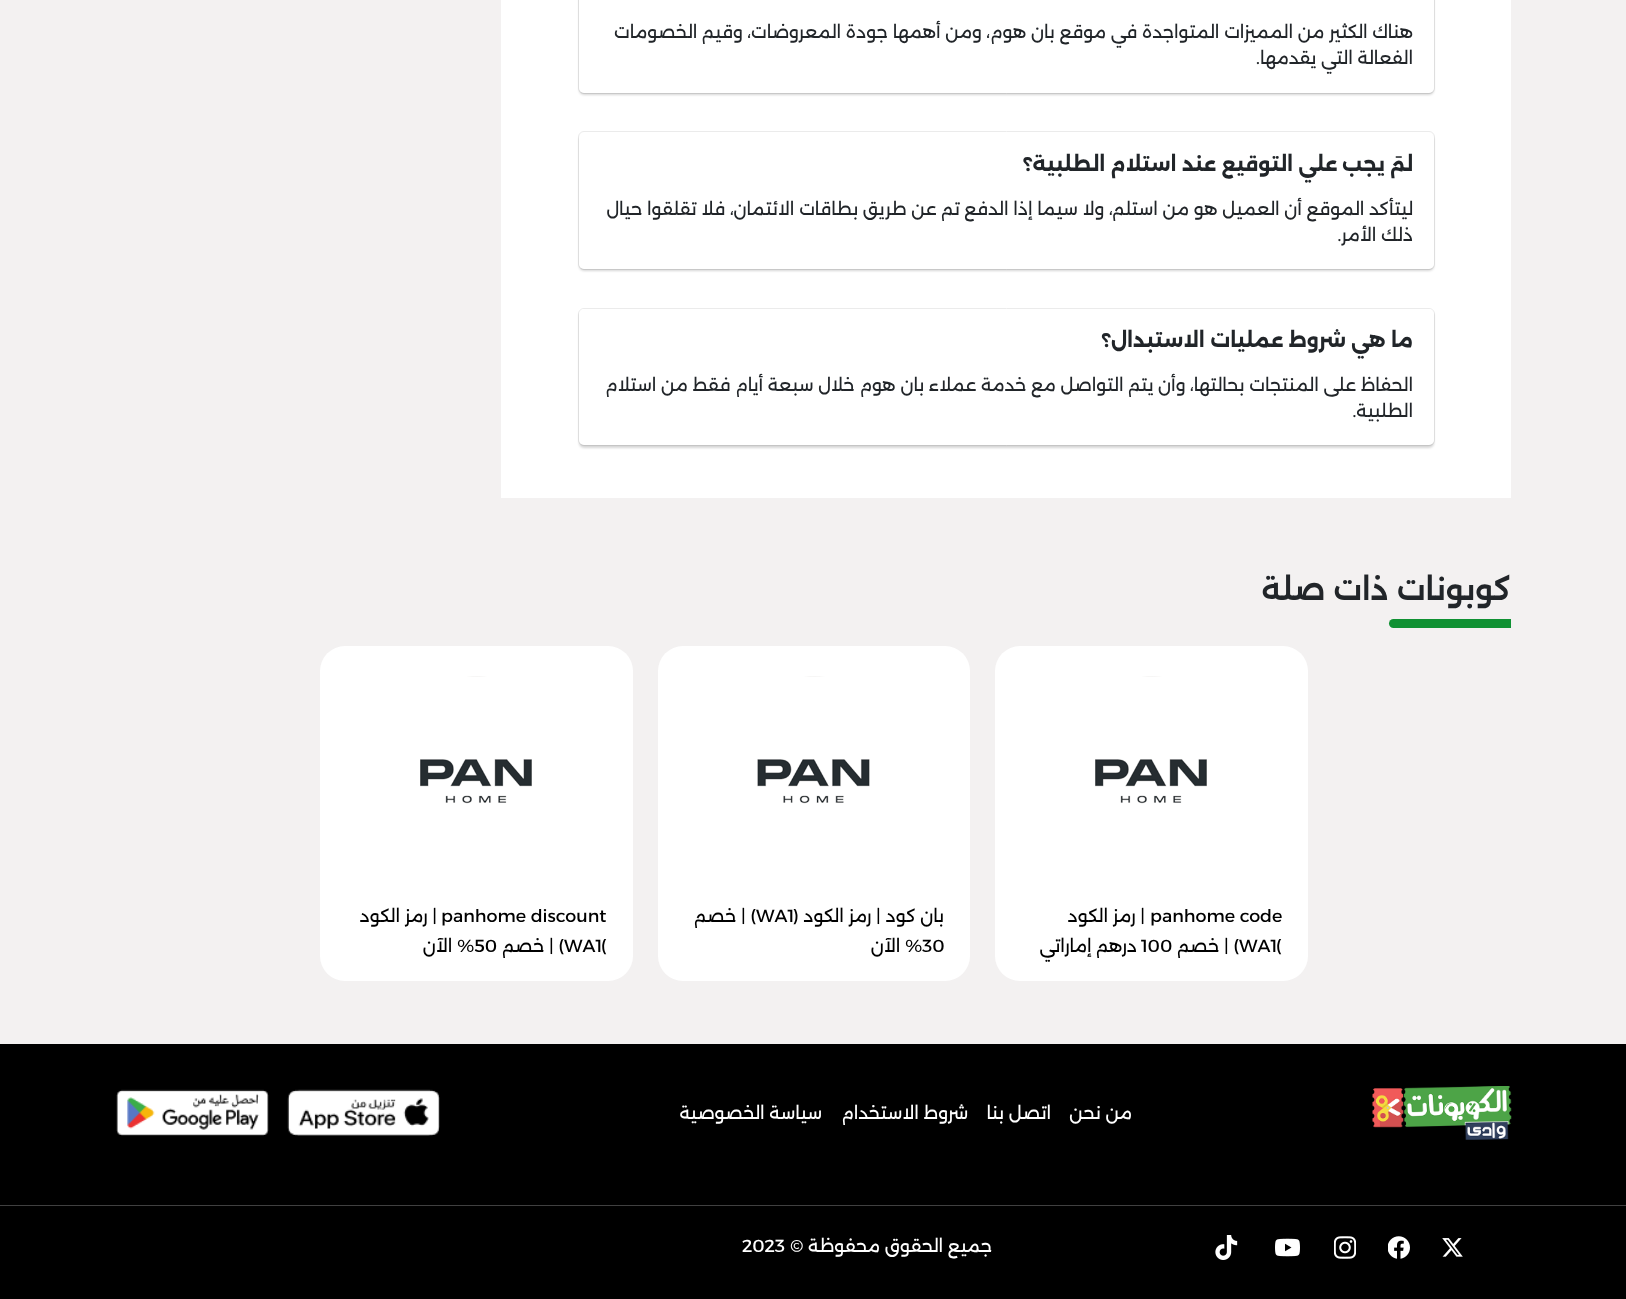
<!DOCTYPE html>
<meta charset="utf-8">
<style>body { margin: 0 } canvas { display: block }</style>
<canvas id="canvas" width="1626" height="1299"></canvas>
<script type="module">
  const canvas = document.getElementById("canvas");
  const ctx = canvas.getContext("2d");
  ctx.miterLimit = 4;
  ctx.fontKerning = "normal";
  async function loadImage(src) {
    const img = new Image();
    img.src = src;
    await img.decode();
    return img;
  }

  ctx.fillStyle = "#f3f1f1";
  ctx.fillRect(0, 0, 1626, 1299);
  ctx.fillStyle = "#ffffff";
  ctx.fillRect(501, 0, 1010, 498);
  ctx.beginPath();
  ctx.roundRect(578.5, -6.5, 856, 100, 5.5);
  ctx.strokeStyle = "#ebebeb";
  ctx.stroke();
  ctx.fillStyle = "rgba(0, 0, 0, 0.16)";
  ctx.filter = "blur(1px)";
  ctx.beginPath();
  ctx.roundRect(579, -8, 855, 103, 5);
  ctx.fill();
  ctx.filter = "none";
  ctx.fillStyle = "#ffffff";
  ctx.beginPath();
  ctx.roundRect(579, -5, 855, 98, 5);
  ctx.fill();
  ctx.direction = "rtl";
  ctx.font = "17.5px Alexandria";
  ctx.fillStyle = "#212529";
  ctx.fillText("هناك الكثير من المميزات المتواجدة في موقع بان هوم، ومن أهمها جودة المعروضات، وقيم الخصومات", 1413, 38);
  ctx.fillText("الفعالة التي يقدمها.", 1413, 64);
  ctx.beginPath();
  ctx.roundRect(578.5, 131.5, 856, 138, 5.5);
  ctx.stroke();
  ctx.fillStyle = "rgba(0, 0, 0, 0.16)";
  ctx.filter = "blur(1px)";
  ctx.beginPath();
  ctx.roundRect(579, 135, 855, 136, 5);
  ctx.fill();
  ctx.filter = "none";
  ctx.fillStyle = "#ffffff";
  ctx.beginPath();
  ctx.roundRect(579, 133, 855, 136, 5);
  ctx.fill();
  ctx.font = "bold 20px Alexandria";
  ctx.fillStyle = "#212529";
  ctx.fillText("لمَ يجب علي التوقيع عند استلام الطلبية؟", 1413, 171);
  ctx.font = "17.5px Alexandria";
  ctx.fillText("ليتأكد الموقع أن العميل هو من استلم، ولا سيما إذا الدفع تم عن طريق بطاقات الائتمان، فلا تقلقوا حيال", 1413, 215);
  ctx.fillText("ذلك الأمر.", 1413, 241);
  ctx.beginPath();
  ctx.roundRect(578.5, 308.5, 856, 137, 5.5);
  ctx.stroke();
  ctx.fillStyle = "rgba(0, 0, 0, 0.16)";
  ctx.filter = "blur(1px)";
  ctx.beginPath();
  ctx.roundRect(579, 311, 855, 137, 5);
  ctx.fill();
  ctx.filter = "none";
  ctx.fillStyle = "#ffffff";
  ctx.beginPath();
  ctx.roundRect(579, 309, 855, 136, 5);
  ctx.fill();
  ctx.font = "bold 20px Alexandria";
  ctx.fillStyle = "#212529";
  ctx.fillText("ما هي شروط عمليات الاستبدال؟", 1413, 347);
  ctx.font = "17.5px Alexandria";
  ctx.fillText("الحفاظ على المنتجات بحالتها، وأن يتم التواصل مع خدمة عملاء بان هوم خلال سبعة أيام فقط من استلام", 1413, 391);
  ctx.fillText("الطلبية.", 1413, 417);
  ctx.font = "600 30px Alexandria";
  ctx.fillText("كوبونات ذات صلة", 1511, 600);
  ctx.fillStyle = "#0f9133";
  ctx.beginPath();
  ctx.roundRect(1389, 619, 122, 9, [4.5, 0, 0, 4.5]);
  ctx.fill();
  ctx.fillStyle = "#ffffff";
  ctx.beginPath();
  ctx.roundRect(995, 646, 313, 335, 25);
  ctx.fill();
  ctx.drawImage(await loadImage("img1.png"), 1095, 676, 112, 128);
  ctx.direction = "ltr";
  ctx.font = "17.5px Alexandria";
  ctx.fillStyle = "#000000";
  ctx.fillText("panhome code", 1150, 922);
  ctx.direction = "rtl";
  ctx.fillText("| رمز الكود", 1145, 922);
  ctx.direction = "ltr";
  ctx.fillText("(", 1276, 952);
  ctx.fillText("WA1", 1239, 952);
  ctx.direction = "rtl";
  ctx.fillText(") | خصم", 1239, 952);
  ctx.direction = "ltr";
  ctx.fillText("100", 1141, 952);
  ctx.direction = "rtl";
  ctx.fillText("درهم إماراتي", 1137, 952);
  ctx.fillStyle = "#ffffff";
  ctx.beginPath();
  ctx.roundRect(658, 646, 312, 335, 25);
  ctx.fill();
  ctx.drawImage(await loadImage("img2.png"), 757, 676, 113, 128);
  ctx.fillStyle = "#000000";
  ctx.fillText("بان كود | رمز الكود (", 944, 922);
  ctx.direction = "ltr";
  ctx.fillText("WA1", 756, 922);
  ctx.direction = "rtl";
  ctx.fillText(") | خصم", 756, 922);
  ctx.fillText("% الآن", 922, 952);
  ctx.direction = "ltr";
  ctx.fillText("30", 922, 952);
  ctx.fillStyle = "#ffffff";
  ctx.beginPath();
  ctx.roundRect(320, 646, 313, 335, 25);
  ctx.fill();
  ctx.drawImage(await loadImage("img1.png"), 420, 676, 112, 128);
  ctx.fillStyle = "#000000";
  ctx.fillText("panhome discount", 441, 922);
  ctx.direction = "rtl";
  ctx.fillText("| رمز الكود", 437, 922);
  ctx.direction = "ltr";
  ctx.fillText("(", 601, 952);
  ctx.fillText("WA1", 564, 952);
  ctx.direction = "rtl";
  ctx.fillText(") | خصم", 564, 952);
  ctx.direction = "ltr";
  ctx.fillText("50", 474, 952);
  ctx.direction = "rtl";
  ctx.fillText("% الآن", 474, 952);
  ctx.fillRect(0, 1044, 1626, 255);
  ctx.drawImage(await loadImage("img3.png"), 1372, 1086, 140, 54);
  ctx.fillStyle = "#ffffff";
  ctx.fillText("من نحن", 1132, 1119);
  ctx.fillText("اتصل بنا", 1051, 1119);
  ctx.fillText("شروط الاستخدام", 968, 1119);
  ctx.fillText("سياسة الخصوصية", 822, 1119);
  ctx.drawImage(await loadImage("img4.png"), 287, 1089, 153, 47);
  ctx.drawImage(await loadImage("img5.png"), 116, 1089, 153, 47);
  ctx.fillStyle = "#404040";
  ctx.fillRect(0, 1205, 1626, 1);
  ctx.drawImage(await loadImage("img6.png"), 1442, 1238, 21, 19);
  ctx.drawImage(await loadImage("img7.png"), 1388, 1236, 22, 23);
  ctx.drawImage(await loadImage("img8.png"), 1334, 1236, 22, 23);
  ctx.drawImage(await loadImage("img9.png"), 1275, 1238, 25, 19);
  ctx.drawImage(await loadImage("img10.png"), 1215, 1235, 23, 25);
  ctx.fillStyle = "#ffffff";
  ctx.fillText("جميع الحقوق محفوظة ©", 992, 1252);
  ctx.direction = "ltr";
  ctx.fillText("2023", 742, 1252);
</script>
